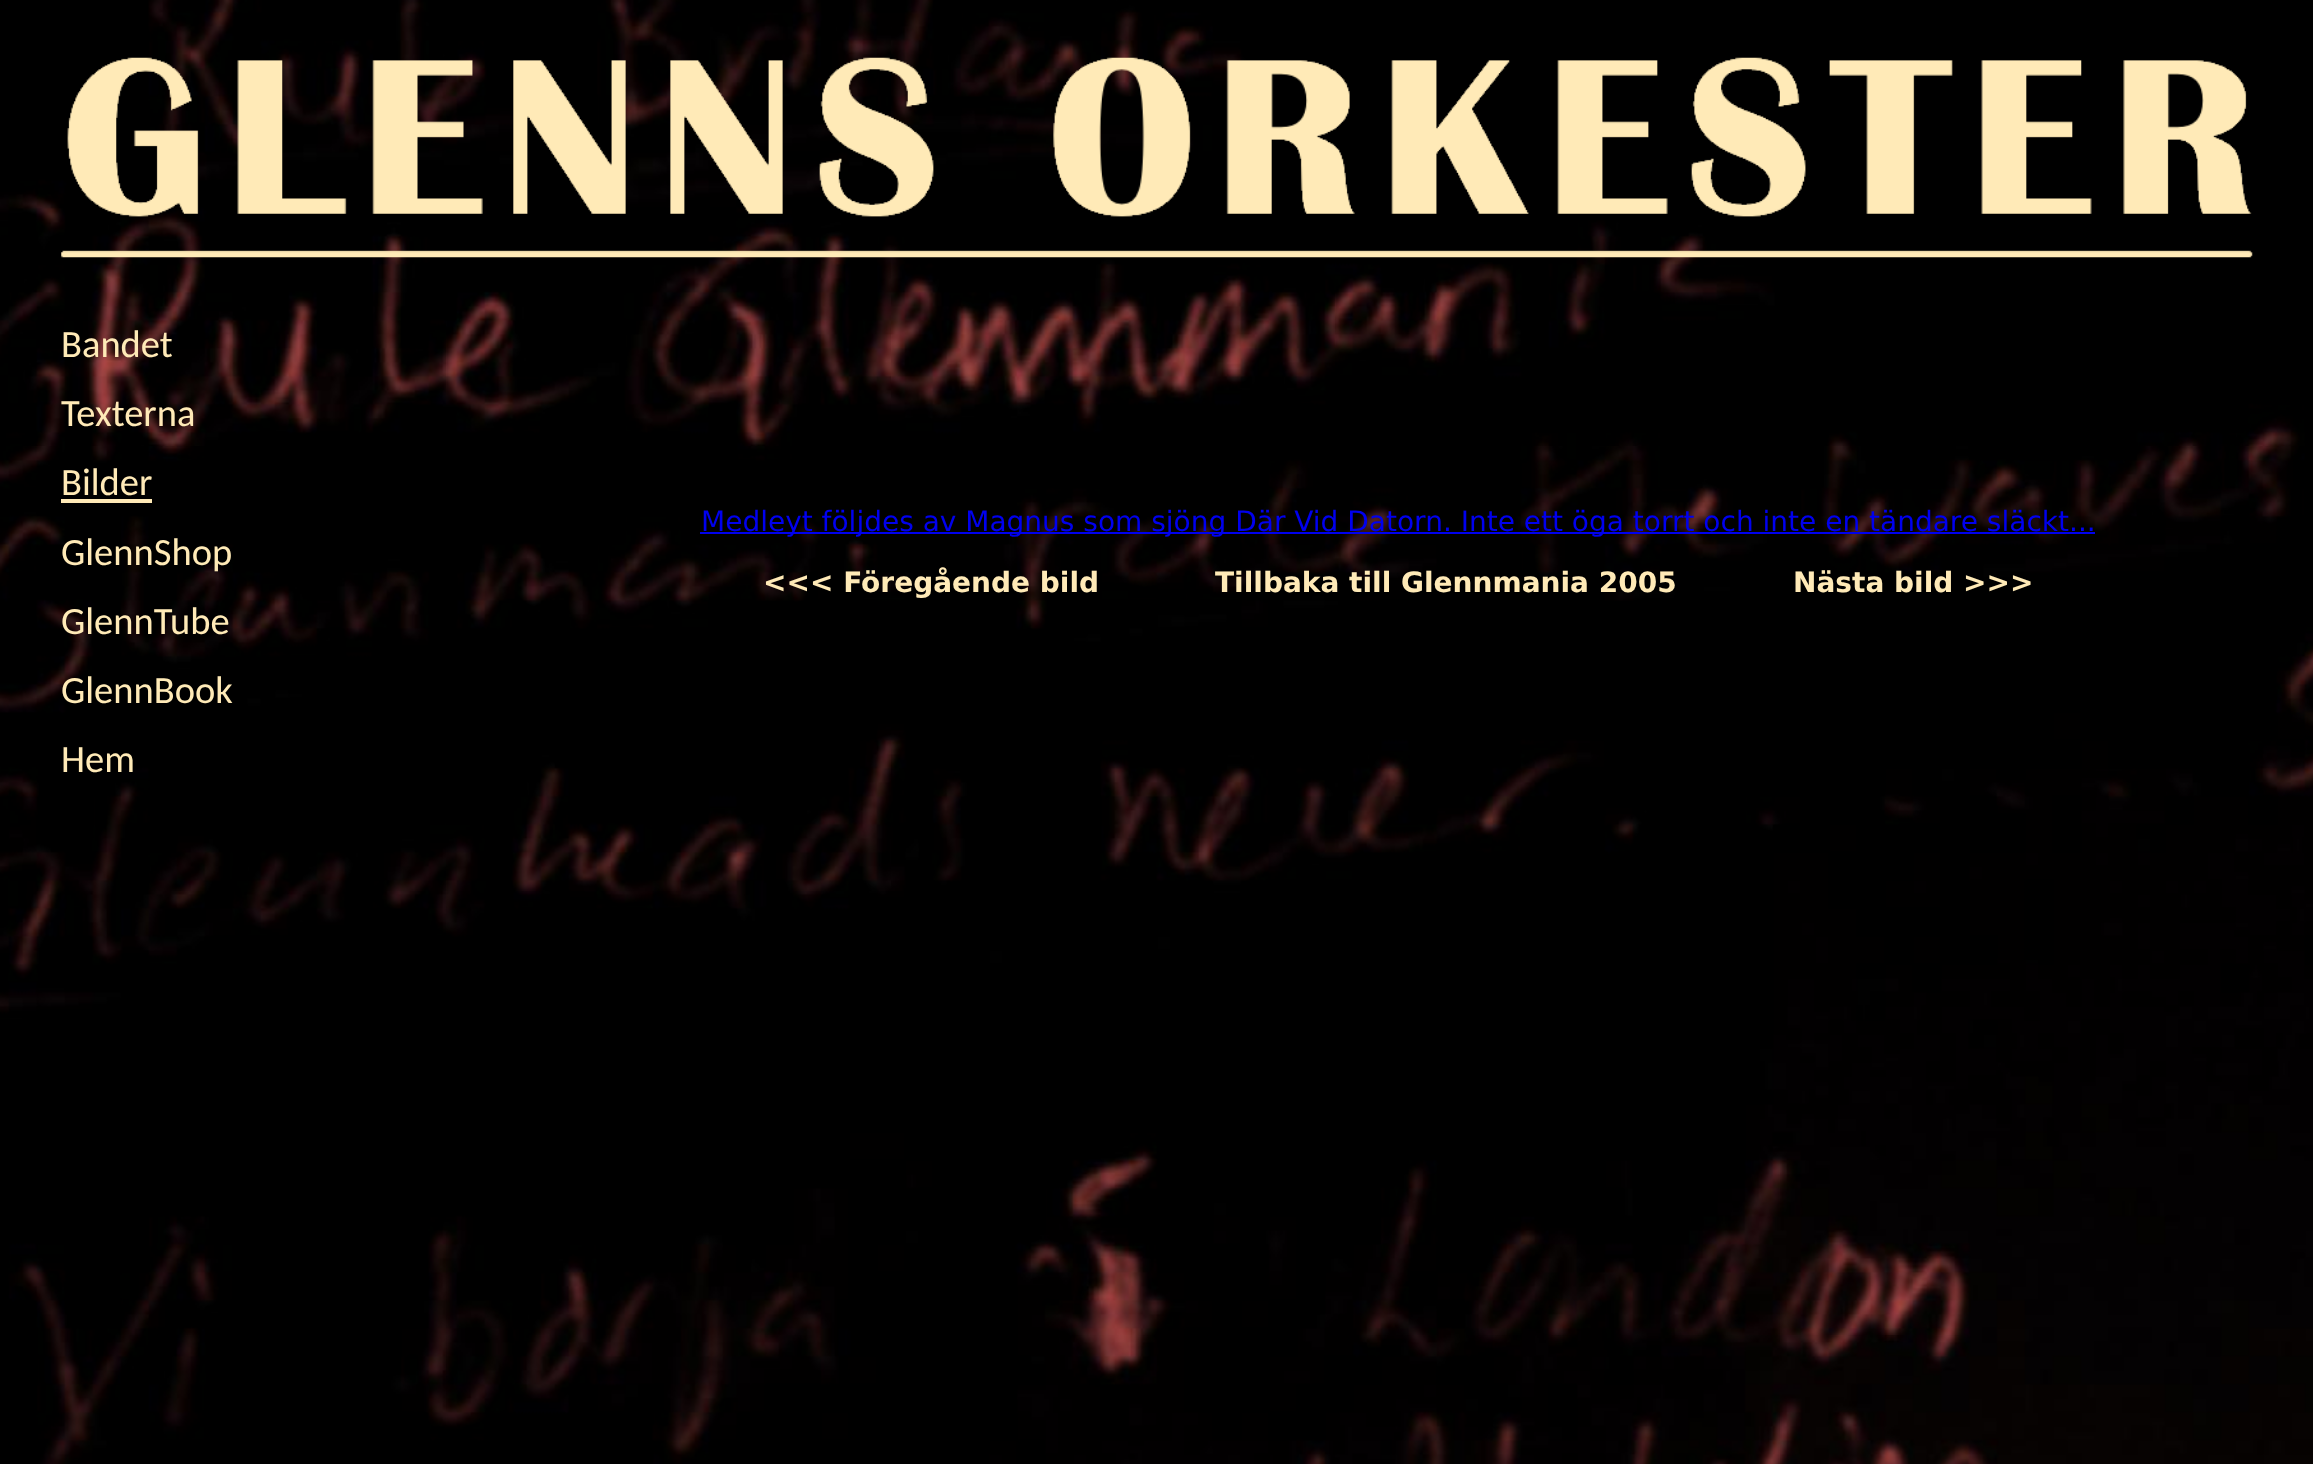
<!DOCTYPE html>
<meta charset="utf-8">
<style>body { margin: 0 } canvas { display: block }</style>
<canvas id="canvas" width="2313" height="1464"></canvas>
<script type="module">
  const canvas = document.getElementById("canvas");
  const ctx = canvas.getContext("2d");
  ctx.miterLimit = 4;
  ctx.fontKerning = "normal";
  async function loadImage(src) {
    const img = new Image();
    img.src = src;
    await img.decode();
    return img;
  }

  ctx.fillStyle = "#ffffff";
  ctx.fillRect(0, 0, 2313, 1464);
  ctx.drawImage(await loadImage("img1.png"), 0, 0, 2313, 1464);
  ctx.drawImage(await loadImage("img2.png"), 61, 57, 2192, 201);
  ctx.font = "38.5px Carlito";
  ctx.fillStyle = "#ffeab7";
  ctx.fillText("Bandet", 61, 357);
  ctx.fillText("Texterna", 61, 426);
  ctx.fillText("Bilder", 61, 495);
  ctx.fillRect(61, 499, 91, 4);
  ctx.fillText("GlennShop", 61, 565);
  ctx.fillText("GlennTube", 61, 634);
  ctx.fillText("GlennBook", 61, 703);
  ctx.fillText("Hem", 61, 772);
  ctx.fillStyle = "#0000ee";
  ctx.fillRect(700, 532, 1395, 2);
  ctx.font = "28px DejaVu Sans";
  ctx.fillText("Medleyt följdes av Magnus som sjöng Där Vid Datorn. Inte ett öga torrt och inte en tändare släckt...", 701, 531);
  ctx.font = "bold 28px DejaVu Sans";
  ctx.fillStyle = "#ffeab7";
  ctx.fillText("<<< Föregående bild", 763, 592);
  ctx.fillText("Tillbaka till Glennmania 2005", 1215, 592);
  ctx.fillText("Nästa bild >>>", 1793, 592);
</script>
